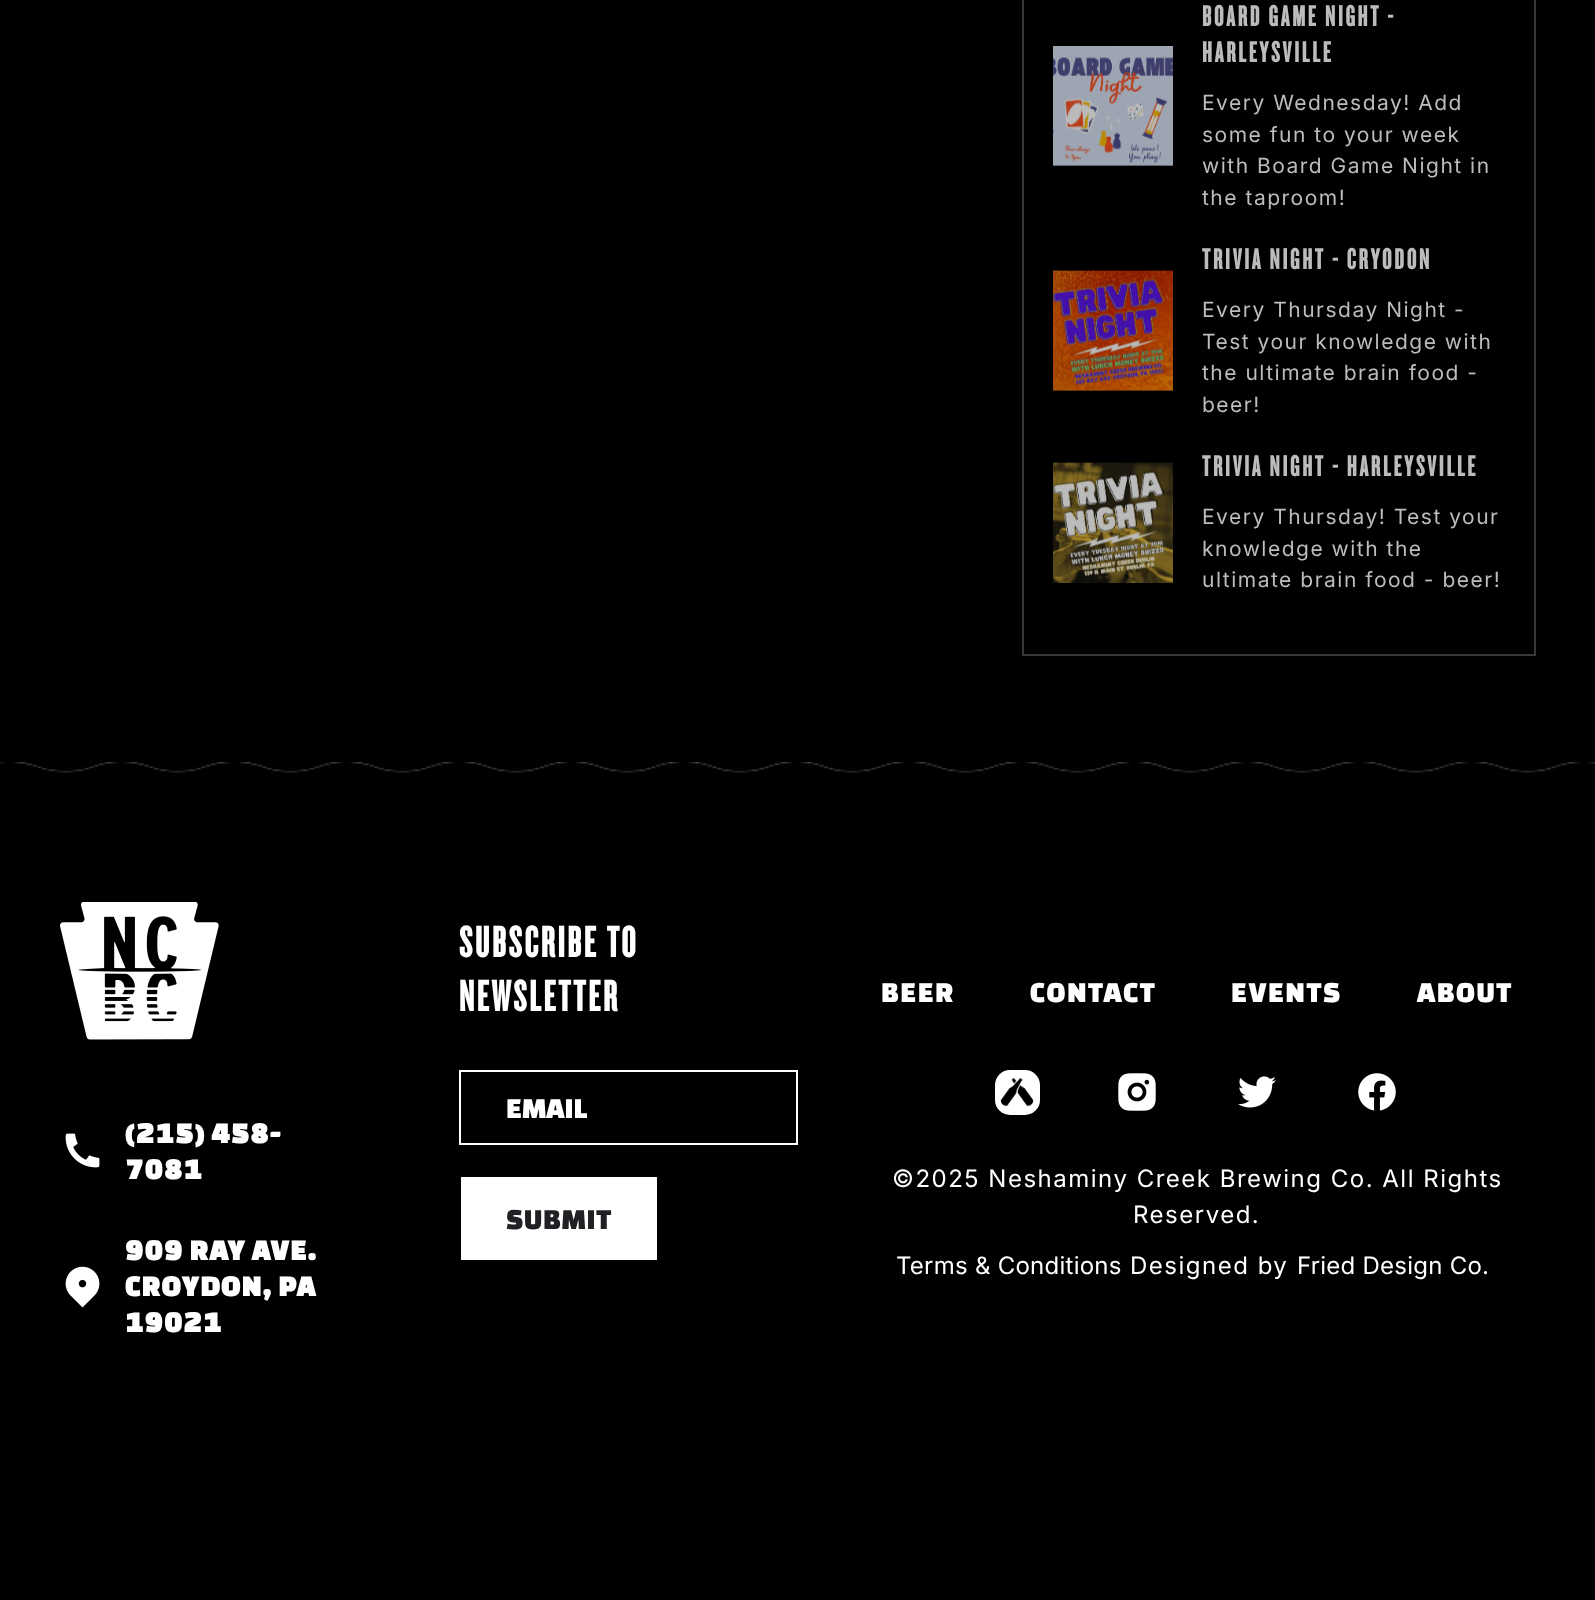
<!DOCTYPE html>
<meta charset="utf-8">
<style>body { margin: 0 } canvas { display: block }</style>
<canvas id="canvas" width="1595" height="1600"></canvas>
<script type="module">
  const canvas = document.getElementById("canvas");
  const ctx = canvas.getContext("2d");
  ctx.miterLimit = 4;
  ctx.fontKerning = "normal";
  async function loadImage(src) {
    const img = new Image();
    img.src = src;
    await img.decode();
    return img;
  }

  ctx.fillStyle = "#000000";
  ctx.fillRect(0, 0, 1595, 1600);
  ctx.strokeStyle = "#383838";
  ctx.lineWidth = 2;
  ctx.strokeRect(1023, -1, 512, 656);
  ctx.drawImage(await loadImage("img1.png"), 1053, 46, 120, 120);
  ctx.letterSpacing = "3px";
  ctx.font = "bold 30px 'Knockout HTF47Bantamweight'";
  ctx.fillStyle = "#bcbcbc";
  ctx.fillText("BOARD GAME NIGHT -", 1202, 26);
  ctx.fillText("HARLEYSVILLE", 1202, 62);
  ctx.letterSpacing = "1.5px";
  ctx.font = "21px Inter";
  ctx.fillText("Every Wednesday! Add", 1202, 110);
  ctx.fillText("some fun to your week", 1202, 142);
  ctx.fillText("with Board Game Night in", 1202, 173);
  ctx.fillText("the taproom!", 1202, 205);
  ctx.drawImage(await loadImage("img2.png"), 1053, 270, 120, 121);
  ctx.letterSpacing = "3px";
  ctx.font = "bold 30px 'Knockout HTF47Bantamweight'";
  ctx.fillText("TRIVIA NIGHT - CRYODON", 1202, 269);
  ctx.letterSpacing = "1.5px";
  ctx.font = "21px Inter";
  ctx.fillText("Every Thursday Night -", 1202, 317);
  ctx.fillText("Test your knowledge with", 1202, 349);
  ctx.fillText("the ultimate brain food -", 1202, 380);
  ctx.fillText("beer!", 1202, 412);
  ctx.drawImage(await loadImage("img3.png"), 1053, 462, 120, 121);
  ctx.letterSpacing = "3px";
  ctx.font = "bold 30px 'Knockout HTF47Bantamweight'";
  ctx.fillText("TRIVIA NIGHT - HARLEYSVILLE", 1202, 476);
  ctx.letterSpacing = "1.5px";
  ctx.font = "21px Inter";
  ctx.fillText("Every Thursday! Test your", 1202, 524);
  ctx.fillText("knowledge with the", 1202, 556);
  ctx.fillText("ultimate brain food - beer!", 1202, 587);
  ctx.drawImage(await loadImage("img4.png"), 0, 762, 1595, 11);
  ctx.drawImage(await loadImage("img5.png"), 60, 902, 159, 138);
  ctx.drawImage(await loadImage("img6.png"), 65, 1133, 35, 35);
  ctx.font = "bold 30px Changa One";
  ctx.fillStyle = "#ffffff";
  ctx.fillText("(215) 458-", 125, 1143);
  ctx.fillText("7081", 125, 1179);
  ctx.drawImage(await loadImage("img7.png"), 65, 1266, 35, 42);
  ctx.fillText("909 RAY AVE.", 125, 1260);
  ctx.fillText("CROYDON, PA", 125, 1296);
  ctx.fillText("19021", 125, 1332);
  ctx.letterSpacing = "3px";
  ctx.font = "bold 45px 'Knockout HTF47Bantamweight'";
  ctx.fillText("SUBSCRIBE TO", 459, 957);
  ctx.fillText("NEWSLETTER", 459, 1011);
  ctx.strokeStyle = "#ffffff";
  ctx.strokeRect(460, 1071, 337, 73);
  ctx.letterSpacing = "0px";
  ctx.font = "30px Changa One";
  ctx.fillText("EMAIL", 506, 1118);
  ctx.fillRect(461, 1177, 196, 83);
  ctx.letterSpacing = "0.75px";
  ctx.fillStyle = "#212024";
  ctx.fillText("SUBMIT", 506, 1229);
  ctx.letterSpacing = "1.5px";
  ctx.fillStyle = "#ffffff";
  ctx.fillText("BEER", 881, 1002);
  ctx.fillText("CONTACT", 1030, 1002);
  ctx.fillText("EVENTS", 1231, 1002);
  ctx.fillText("ABOUT", 1417, 1002);
  ctx.beginPath();
  ctx.roundRect(995, 1070, 45, 45, 15);
  ctx.fill();
  ctx.drawImage(await loadImage("img8.png"), 1000, 1078, 34, 29);
  ctx.drawImage(await loadImage("img9.png"), 1118, 1073, 38, 38);
  ctx.drawImage(await loadImage("img10.png"), 1238, 1076, 38, 32);
  ctx.drawImage(await loadImage("img11.png"), 1358, 1073, 38, 38);
  ctx.font = "24px Inter";
  ctx.fillText("©2025 Neshaminy Creek Brewing Co. All Rights", 892, 1187);
  ctx.fillText("Reserved.", 1133, 1223);
  ctx.letterSpacing = "0.25px";
  ctx.fillText("Terms & Conditions", 896, 1274);
  ctx.letterSpacing = "1.5px";
  ctx.fillText("Designed by", 1130, 1274);
  ctx.letterSpacing = "0.25px";
  ctx.fillText("Fried Design Co.", 1297, 1274);
</script>
